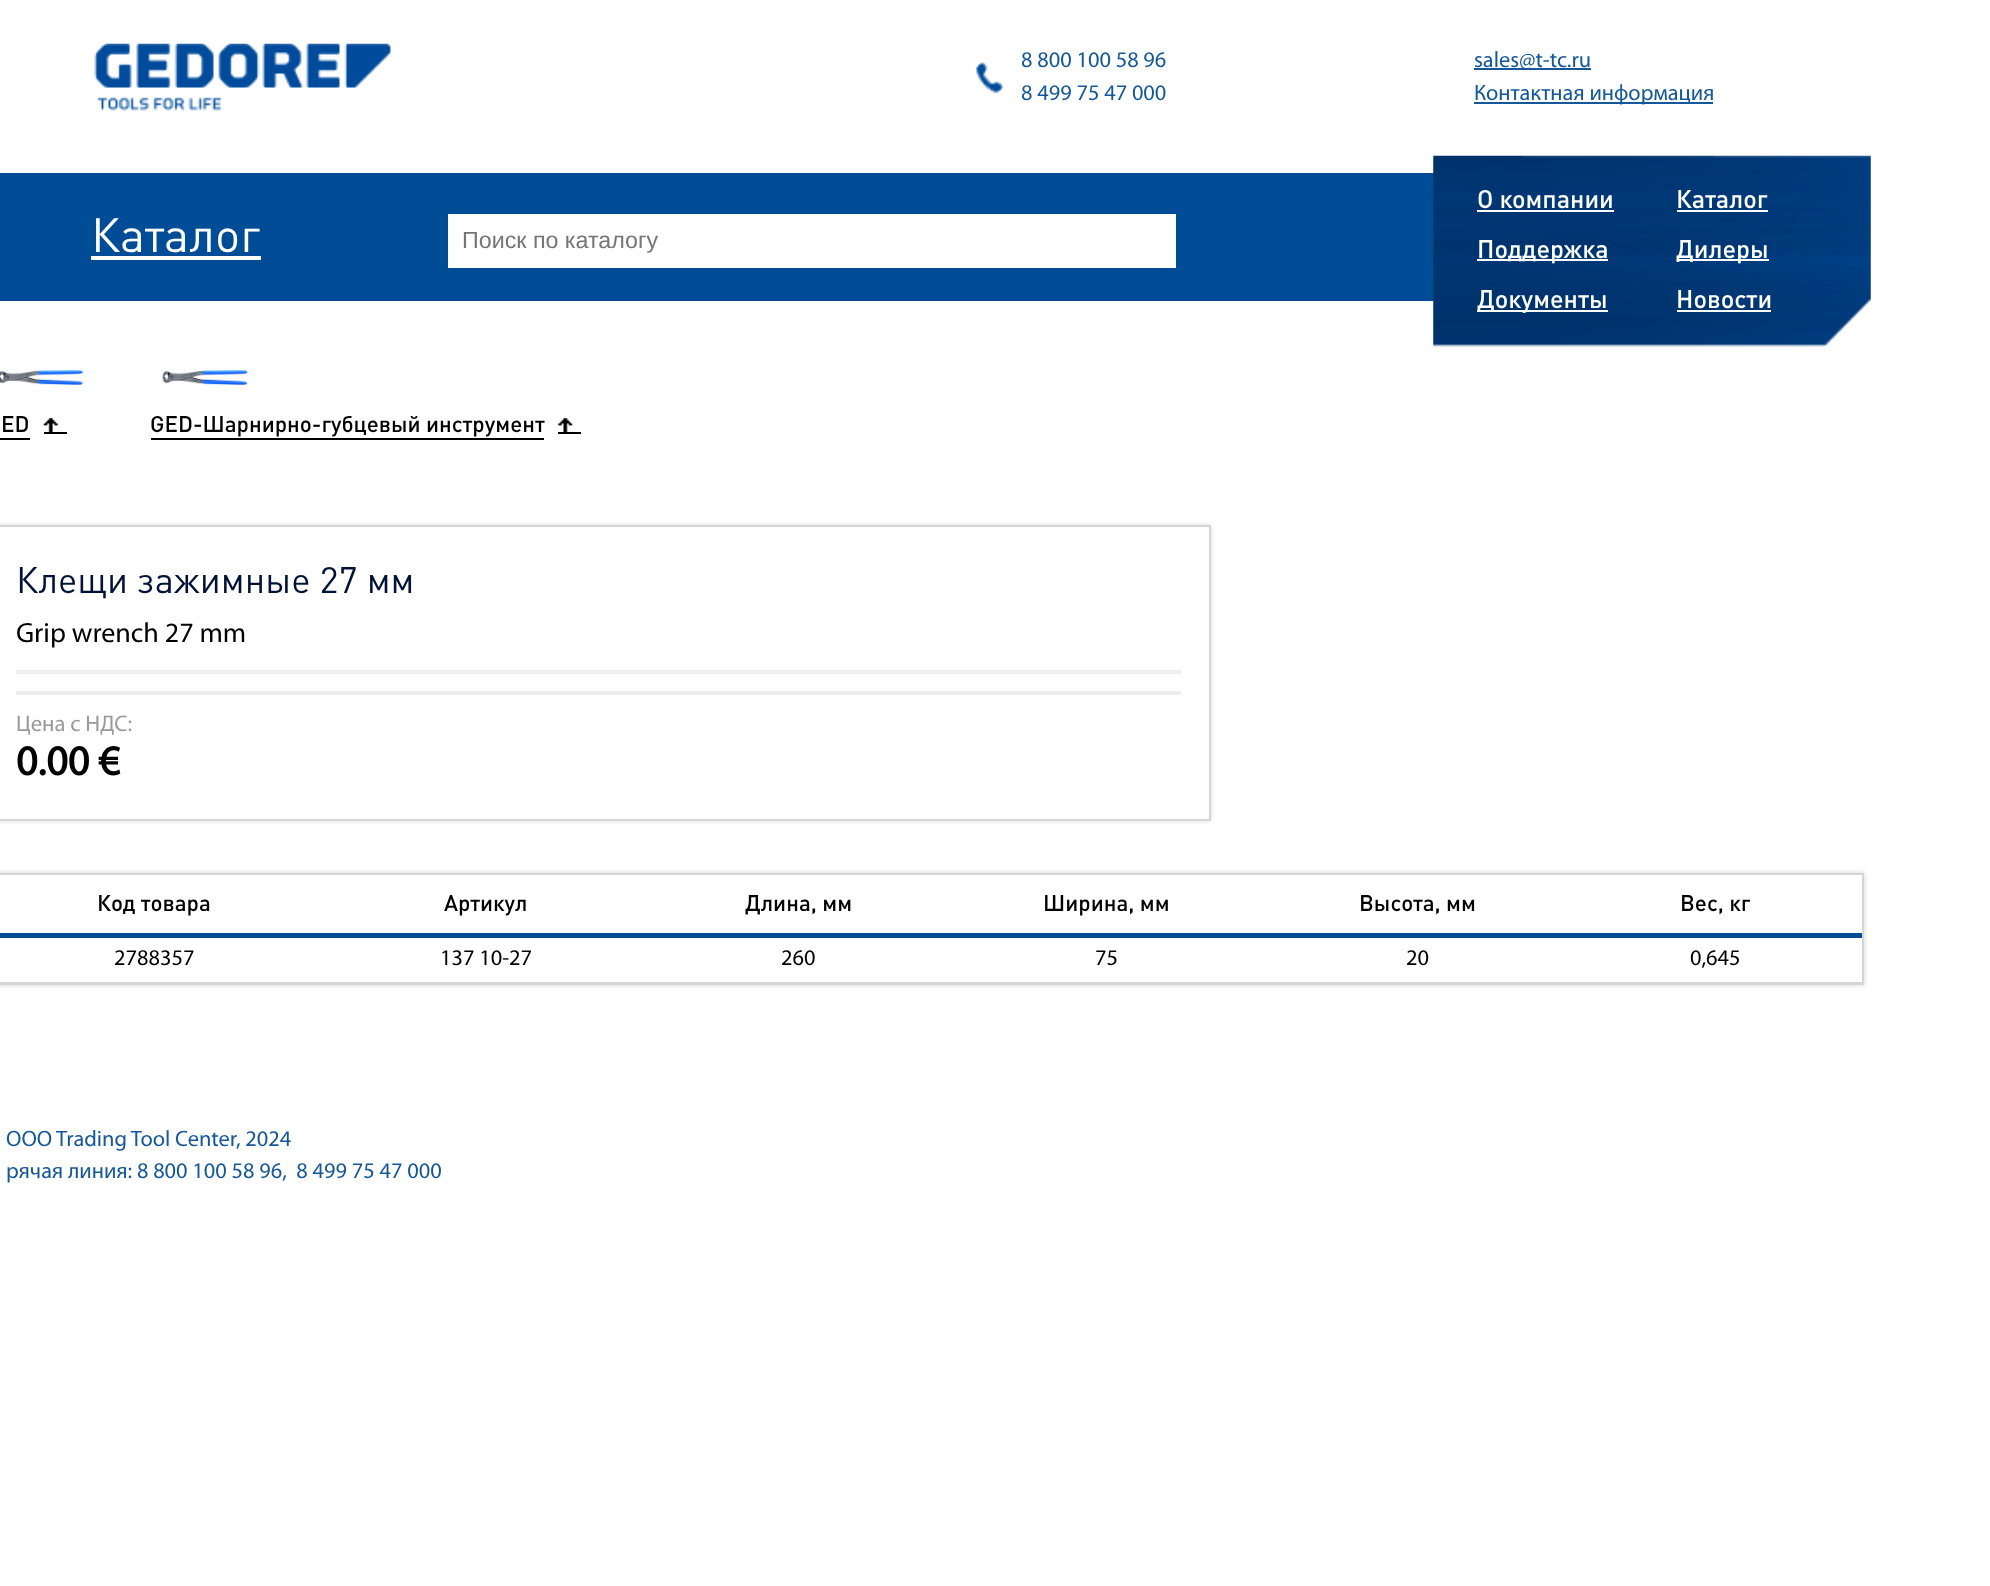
<!DOCTYPE html>
<meta charset="utf-8">
<style>body { margin: 0 } canvas { display: block }</style>
<canvas id="canvas" width="1990" height="1586"></canvas>
<script type="module">
  const canvas = document.getElementById("canvas");
  const ctx = canvas.getContext("2d");
  ctx.miterLimit = 4;
  ctx.fontKerning = "normal";
  async function loadImage(src) {
    const img = new Image();
    img.src = src;
    await img.decode();
    return img;
  }

  ctx.fillStyle = "#ffffff";
  ctx.fillRect(0, 0, 1990, 1586);
  ctx.drawImage(await loadImage("img1.png"), 94, 43, 298, 68);
  ctx.drawImage(await loadImage("img2.png"), 975, 61, 29, 33);
  ctx.font = "22.4px Myriad";
  ctx.fillStyle = "#15579b";
  ctx.fillText("8 800 100 58 96", 1021, 67);
  ctx.fillText("8 499 75 47 000", 1021, 100);
  ctx.fillRect(1474, 68, 117, 2);
  ctx.fillText("sales@t-tc.ru", 1474, 67);
  ctx.fillRect(1474, 102, 239, 2);
  ctx.fillText("Контактная информация", 1474, 100);
  ctx.fillStyle = "#004c97";
  ctx.fillRect(0, 173, 1434, 128);
  ctx.font = "47.5px DIN";
  ctx.fillStyle = "#ffffff";
  ctx.fillText("Каталог", 91, 252);
  ctx.fillRect(91, 256, 170, 4);
  ctx.fillRect(448, 214, 728, 54);
  ctx.font = "23.25px Liberation Sans";
  ctx.fillStyle = "#757575";
  ctx.fillText("Поиск по каталогу", 462, 248);
  ctx.drawImage(await loadImage("img3.png"), 1433, 155, 438, 192);
  ctx.font = "500 25.25px DIN";
  ctx.fillStyle = "#ffffff";
  ctx.fillText("О компании", 1477, 208);
  ctx.fillRect(1477, 210, 137, 2);
  ctx.fillText("Каталог", 1676, 208);
  ctx.fillRect(1677, 210, 91, 2);
  ctx.fillRect(1477, 259, 131, 2);
  ctx.fillText("Поддержка", 1477, 258);
  ctx.fillRect(1677, 259, 92, 2);
  ctx.fillText("Дилеры", 1676, 258);
  ctx.fillRect(1477, 310, 131, 2);
  ctx.fillText("Документы", 1477, 308);
  ctx.fillText("Новости", 1676, 308);
  ctx.fillRect(1677, 310, 94, 2);
  ctx.drawImage(await loadImage("img4.png"), 0, 369, 84, 18);
  ctx.fillStyle = "#000000";
  ctx.fillRect(0, 438, 30, 2);
  ctx.fillRect(44, 432, 23, 2);
  ctx.font = "500 22.4px DIN";
  ctx.fillText("ED", 1, 432);
  ctx.drawImage(await loadImage("img5.png"), 43, 418, 15, 14);
  ctx.drawImage(await loadImage("img6.png"), 162, 369, 87, 17);
  ctx.fillRect(151, 438, 393, 2);
  ctx.fillRect(558, 432, 23, 2);
  ctx.fillText("GED-Шарнирно-губцевый инструмент", 150, 432);
  ctx.drawImage(await loadImage("img7.png"), 558, 418, 15, 14);
  ctx.save();
  ctx.beginPath();
  ctx.moveTo(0, 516);
  ctx.lineTo(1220, 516);
  ctx.lineTo(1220, 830);
  ctx.lineTo(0, 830);
  ctx.closePath();
  ctx.moveTo(-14, 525);
  ctx.lineTo(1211, 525);
  ctx.lineTo(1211, 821);
  ctx.lineTo(-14, 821);
  ctx.closePath();
  ctx.clip("evenodd");
  ctx.fillStyle = "#dadada";
  ctx.filter = "blur(2.5px)";
  ctx.beginPath();
  ctx.rect(-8, 525, 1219, 296);
  ctx.fill();
  ctx.filter = "none";
  ctx.restore();
  ctx.strokeStyle = "#d5d5d5";
  ctx.lineWidth = 2;
  ctx.strokeRect(-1, 526, 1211, 294);
  ctx.font = "36.4px DIN";
  ctx.fillStyle = "#001238";
  ctx.fillText("Клещи зажимные 27 мм", 16, 593);
  ctx.fillStyle = "#ededed";
  ctx.fillRect(16, 670, 1165, 4);
  ctx.font = "28px Myriad";
  ctx.fillStyle = "#000000";
  ctx.fillText("Grip wrench 27 mm", 16, 642);
  ctx.fillStyle = "#ededed";
  ctx.fillRect(16, 691, 1165, 4);
  ctx.font = "22.75px Myriad";
  ctx.fillStyle = "#999999";
  ctx.fillText("Цена с НДС:", 16, 731);
  ctx.font = "bold 42px Myriad";
  ctx.fillStyle = "#000000";
  ctx.fillText("0.00 €", 16, 775);
  ctx.save();
  ctx.beginPath();
  ctx.moveTo(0, 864);
  ctx.lineTo(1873, 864);
  ctx.lineTo(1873, 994);
  ctx.lineTo(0, 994);
  ctx.closePath();
  ctx.moveTo(-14, 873);
  ctx.lineTo(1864, 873);
  ctx.lineTo(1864, 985);
  ctx.lineTo(-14, 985);
  ctx.closePath();
  ctx.clip("evenodd");
  ctx.fillStyle = "#d0d0d0";
  ctx.filter = "blur(2.5px)";
  ctx.beginPath();
  ctx.rect(-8, 873, 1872, 112);
  ctx.fill();
  ctx.filter = "none";
  ctx.restore();
  ctx.strokeRect(-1, 874, 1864, 110);
  ctx.fillStyle = "#004c97";
  ctx.fillRect(0, 933, 1862, 5);
  ctx.font = "500 22.4px DIN";
  ctx.fillStyle = "#000000";
  ctx.fillText("Код товара", 97, 911);
  ctx.fillText("Артикул", 444, 911);
  ctx.fillText("Длина, мм", 745, 911);
  ctx.fillText("Ширина, мм", 1043, 911);
  ctx.fillText("Высота, мм", 1359, 911);
  ctx.fillText("Вес, кг", 1680, 911);
  ctx.fillStyle = "#d5d5d5";
  ctx.fillRect(0, 982, 1862, 1);
  ctx.font = "22.4px Myriad";
  ctx.fillStyle = "#000000";
  ctx.fillText("2788357", 114, 965);
  ctx.fillText("137 10-27", 440, 965);
  ctx.fillText("260", 781, 965);
  ctx.fillText("75", 1095, 965);
  ctx.fillText("20", 1406, 965);
  ctx.fillText("0,645", 1690, 965);
  ctx.fillStyle = "#15579b";
  ctx.fillText("OOO Trading Tool Center, 2024", 6, 1146);
  ctx.fillText("рячая линия: 8 800 100 58 96,  8 499 75 47 000", 6, 1178);
</script>
